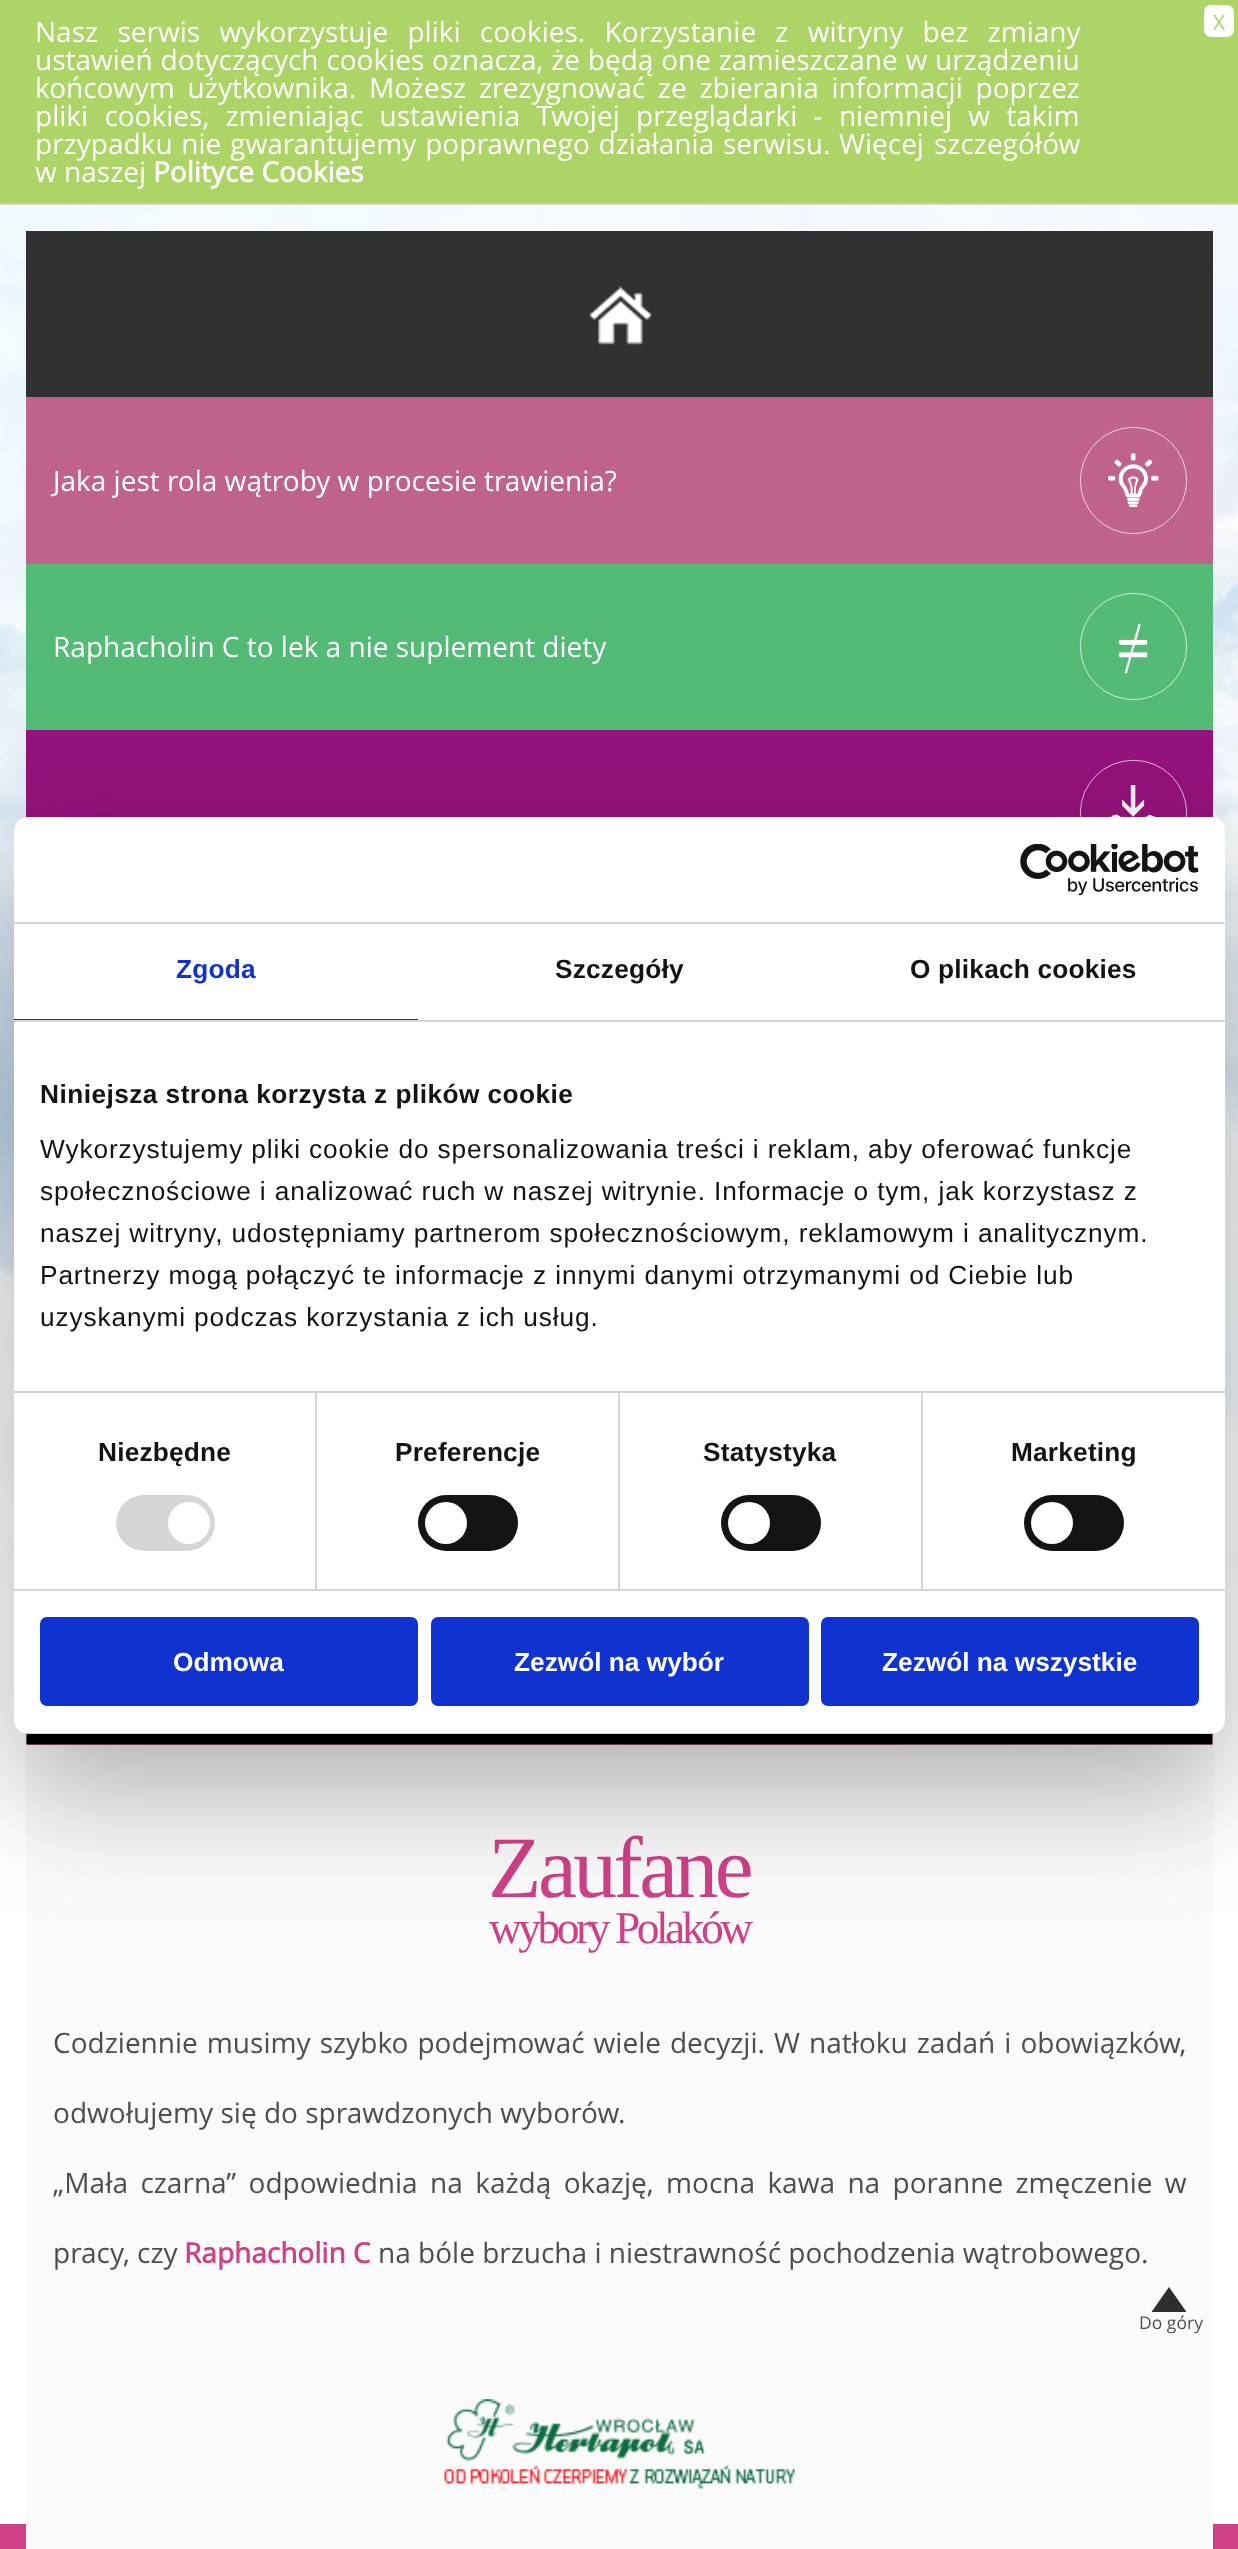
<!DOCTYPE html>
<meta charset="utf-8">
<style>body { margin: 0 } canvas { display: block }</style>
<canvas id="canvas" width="1238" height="2549"></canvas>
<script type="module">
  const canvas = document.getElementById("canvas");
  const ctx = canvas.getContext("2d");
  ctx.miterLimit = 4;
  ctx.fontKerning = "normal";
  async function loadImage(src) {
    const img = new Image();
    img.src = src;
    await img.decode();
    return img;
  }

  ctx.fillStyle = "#ffffff";
  ctx.fillRect(0, 0, 1238, 2549);
  ctx.drawImage(await loadImage("img1.png"), 0, 205, 1238, 1378);
  ctx.fillStyle = "#add467";
  ctx.fillRect(0, 0, 1238, 203);
  ctx.fillStyle = "#d3d0d0";
  ctx.fillRect(0, 203, 1238, 2);
  ctx.wordSpacing = "12px";
  ctx.font = "28px Open Sans";
  ctx.fillStyle = "#ffffff";
  ctx.fillText("Nasz serwis wykorzystuje pliki cookies. Korzystanie z witryny bez zmiany", 35, 42);
  ctx.wordSpacing = "0.5px";
  ctx.fillText("ustawień dotyczących cookies oznacza, że będą one zamieszczane w urządzeniu", 35, 70);
  ctx.wordSpacing = "5.5px";
  ctx.fillText("końcowym użytkownika. Możesz zrezygnować ze zbierania informacji poprzez", 35, 98);
  ctx.wordSpacing = "9px";
  ctx.fillText("pliki cookies, zmieniając ustawienia Twojej przeglądarki - niemniej w takim", 35, 126);
  ctx.wordSpacing = "1.5px";
  ctx.fillText("przypadku nie gwarantujemy poprawnego działania serwisu. Więcej", 35, 154);
  ctx.wordSpacing = "0px";
  ctx.fillText("szczegółów", 934, 154);
  ctx.fillText("w naszej", 35, 182);
  ctx.font = "bold 28px Open Sans";
  ctx.fillText("Polityce Cookies", 153, 182);
  ctx.beginPath();
  ctx.roundRect(1204, 5, 30, 32, 7);
  ctx.fill();
  ctx.font = "21px Open Sans";
  ctx.fillStyle = "#add467";
  ctx.fillText("X", 1213, 30);
  ctx.fillStyle = "#313131";
  ctx.fillRect(26, 231, 1187, 166);
  ctx.drawImage(await loadImage("img2.png"), 589, 285, 62, 60);
  ctx.fillStyle = "#bf628c";
  ctx.fillRect(26, 397, 1187, 167);
  ctx.font = "28px Open Sans";
  ctx.fillStyle = "#ffffff";
  ctx.fillText("Jaka jest rola wątroby w procesie trawienia?", 53, 491);
  ctx.drawImage(await loadImage("img3.png"), 1108, 453, 51, 55);
  ctx.beginPath();
  ctx.arc(1133.5, 480.5, 53.15, 0, Math.PI * 2);
  ctx.strokeStyle = "#ffffff";
  ctx.lineWidth = 0.7;
  ctx.stroke();
  ctx.fillStyle = "#54bb77";
  ctx.fillRect(26, 564, 1187, 166);
  ctx.fillStyle = "#ffffff";
  ctx.fillText("Raphacholin C to lek a nie suplement diety", 53, 657);
  ctx.drawImage(await loadImage("img4.png"), 1118, 623, 30, 51);
  ctx.beginPath();
  ctx.arc(1133.5, 646.5, 53.15, 0, Math.PI * 2);
  ctx.stroke();
  ctx.fillStyle = "#94127b";
  ctx.fillRect(26, 730, 1187, 88);
  ctx.drawImage(await loadImage("img5.png"), 1110, 785, 45, 32);
  ctx.beginPath();
  ctx.roundRect(1080.35, 760.35, 106.3, 105.3, 52.65);
  ctx.stroke();
  ctx.drawImage(await loadImage("img6.png"), 26, 1733, 1187, 12);
  ctx.fillStyle = "#cf4187";
  ctx.fillRect(0, 2524, 1238, 25);
  ctx.fillStyle = "#fbfafa";
  ctx.fillRect(26, 1745, 1187, 804);
  ctx.letterSpacing = "-3.5px";
  ctx.font = "87.5px Liberation Serif";
  ctx.fillStyle = "#cf4187";
  ctx.fillText("Zaufane", 488, 1897);
  ctx.font = "45.5px Liberation Serif";
  ctx.fillText("wybory Polaków", 489, 1943);
  ctx.letterSpacing = "0px";
  ctx.wordSpacing = "1.75px";
  ctx.font = "28px Open Sans";
  ctx.fillStyle = "#4e4e4e";
  ctx.fillText("Codziennie musimy szybko podejmować wiele decyzji. W natłoku zadań i obowiązków,", 53, 2053);
  ctx.wordSpacing = "0px";
  ctx.fillText("odwołujemy się do sprawdzonych wyborów.", 53, 2123);
  ctx.wordSpacing = "5.1px";
  ctx.fillText("„Mała czarna” odpowiednia na każdą okazję, mocna kawa na poranne zmęczenie w", 53, 2193);
  ctx.wordSpacing = "0px";
  ctx.fillText("pracy, czy", 53, 2263);
  ctx.font = "bold 28px Open Sans";
  ctx.fillStyle = "#cf4187";
  ctx.fillText("Raphacholin C", 184, 2263);
  ctx.font = "28px Open Sans";
  ctx.fillStyle = "#4e4e4e";
  ctx.fillText("na bóle brzucha i niestrawność pochodzenia wątrobowego.", 378, 2263);
  ctx.fillStyle = "#2e2e2e";
  ctx.beginPath();
  ctx.moveTo(1186.5, 2312);
  ctx.lineTo(1151.5, 2312);
  ctx.lineTo(1169, 2287);
  ctx.closePath();
  ctx.fill();
  ctx.font = "17.5px Open Sans";
  ctx.fillStyle = "#4e4e4e";
  ctx.fillText("Do góry", 1139, 2329);
  ctx.drawImage(await loadImage("img7.png"), 444, 2399, 351, 90);
  ctx.fillStyle = "rgba(0, 0, 0, 0.3)";
  ctx.filter = "blur(59.5px)";
  ctx.beginPath();
  ctx.roundRect(14, 873, 1211, 917, 14);
  ctx.fill();
  ctx.filter = "none";
  ctx.fillStyle = "#ffffff";
  ctx.beginPath();
  ctx.roundRect(14, 817, 1211, 917, 14);
  ctx.fill();
  ctx.fillStyle = "#d6d6d6";
  ctx.fillRect(14, 922, 1211, 2);
  ctx.drawImage(await loadImage("img8.png"), 1020, 844, 179, 52);
  ctx.fillRect(14, 1020, 1211, 2);
  ctx.fillStyle = "#1032cf";
  ctx.fillRect(14, 1019, 404, 1);
  ctx.letterSpacing = "0.2px";
  ctx.font = "bold 26.25px Liberation Sans";
  ctx.fillText("Zgoda", 176, 978);
  ctx.fillStyle = "#141414";
  ctx.fillText("Szczegóły", 555, 978);
  ctx.fillText("O plikach cookies", 910, 978);
  ctx.fillStyle = "#d6d6d6";
  ctx.fillRect(14, 1391, 1211, 2);
  ctx.letterSpacing = "0.45px";
  ctx.fillStyle = "#141414";
  ctx.fillText("Niniejsza strona korzysta z plików cookie", 40, 1103);
  ctx.letterSpacing = "0.88px";
  ctx.font = "26.25px Liberation Sans";
  ctx.fillText("Wykorzystujemy pliki cookie do spersonalizowania treści i reklam, aby oferować funkcje", 40, 1158);
  ctx.fillText("społecznościowe i analizować ruch w naszej witrynie. Informacje o tym, jak korzystasz z", 40, 1200);
  ctx.fillText("naszej witryny, udostępniamy partnerom społecznościowym, reklamowym i analitycznym.", 40, 1242);
  ctx.fillText("Partnerzy mogą połączyć te informacje z innymi danymi otrzymanymi od Ciebie lub", 40, 1284);
  ctx.fillText("uzyskanymi podczas korzystania z ich usług.", 40, 1326);
  ctx.fillStyle = "#d6d6d6";
  ctx.fillRect(14, 1589, 1211, 2);
  ctx.fillRect(315, 1393, 2, 196);
  ctx.letterSpacing = "0.2px";
  ctx.font = "bold 26.25px Liberation Sans";
  ctx.fillStyle = "#141414";
  ctx.fillText("Niezbędne", 98, 1461);
  ctx.fillStyle = "#d6d6d6";
  ctx.beginPath();
  ctx.roundRect(116, 1495, 99, 56, 28);
  ctx.fill();
  ctx.fillStyle = "#ffffff";
  ctx.beginPath();
  ctx.arc(189, 1523, 21, 0, Math.PI * 2);
  ctx.fill();
  ctx.fillStyle = "#d6d6d6";
  ctx.fillRect(618, 1393, 2, 196);
  ctx.fillStyle = "#141414";
  ctx.fillText("Preferencje", 395, 1461);
  ctx.beginPath();
  ctx.roundRect(418, 1495, 100, 56, 28);
  ctx.fill();
  ctx.fillStyle = "#ffffff";
  ctx.beginPath();
  ctx.arc(446, 1523, 21, 0, Math.PI * 2);
  ctx.fill();
  ctx.fillStyle = "#d6d6d6";
  ctx.fillRect(921, 1393, 2, 196);
  ctx.fillStyle = "#141414";
  ctx.fillText("Statystyka", 703, 1461);
  ctx.beginPath();
  ctx.roundRect(721, 1495, 100, 56, 28);
  ctx.fill();
  ctx.fillStyle = "#ffffff";
  ctx.beginPath();
  ctx.arc(749, 1523, 21, 0, Math.PI * 2);
  ctx.fill();
  ctx.fillStyle = "#141414";
  ctx.fillText("Marketing", 1011, 1461);
  ctx.beginPath();
  ctx.roundRect(1024, 1495, 100, 56, 28);
  ctx.fill();
  ctx.fillStyle = "#ffffff";
  ctx.beginPath();
  ctx.arc(1052, 1523, 21, 0, Math.PI * 2);
  ctx.fill();
  ctx.save();
  ctx.beginPath();
  ctx.roundRect(14, 817, 1211, 917, 14);
  ctx.clip();
  ctx.fillStyle = "#d6d6d6";
  ctx.fillRect(23, 1733, 1193, 1);
  ctx.restore();
  ctx.fillStyle = "#1032cf";
  ctx.beginPath();
  ctx.roundRect(42, 1619, 374, 85, 5);
  ctx.fill();
  ctx.strokeStyle = "#1032cf";
  ctx.lineWidth = 4;
  ctx.stroke();
  ctx.letterSpacing = "0px";
  ctx.fillStyle = "#ffffff";
  ctx.fillText("Odmowa", 173, 1671);
  ctx.fillStyle = "#1032cf";
  ctx.beginPath();
  ctx.roundRect(433, 1619, 374, 85, 5);
  ctx.fill();
  ctx.stroke();
  ctx.fillStyle = "#ffffff";
  ctx.fillText("Zezwól na wybór", 514, 1671);
  ctx.fillStyle = "#1032cf";
  ctx.beginPath();
  ctx.roundRect(823, 1619, 374, 85, 5);
  ctx.fill();
  ctx.stroke();
  ctx.fillStyle = "#ffffff";
  ctx.fillText("Zezwól na wszystkie", 882, 1671);
</script>
